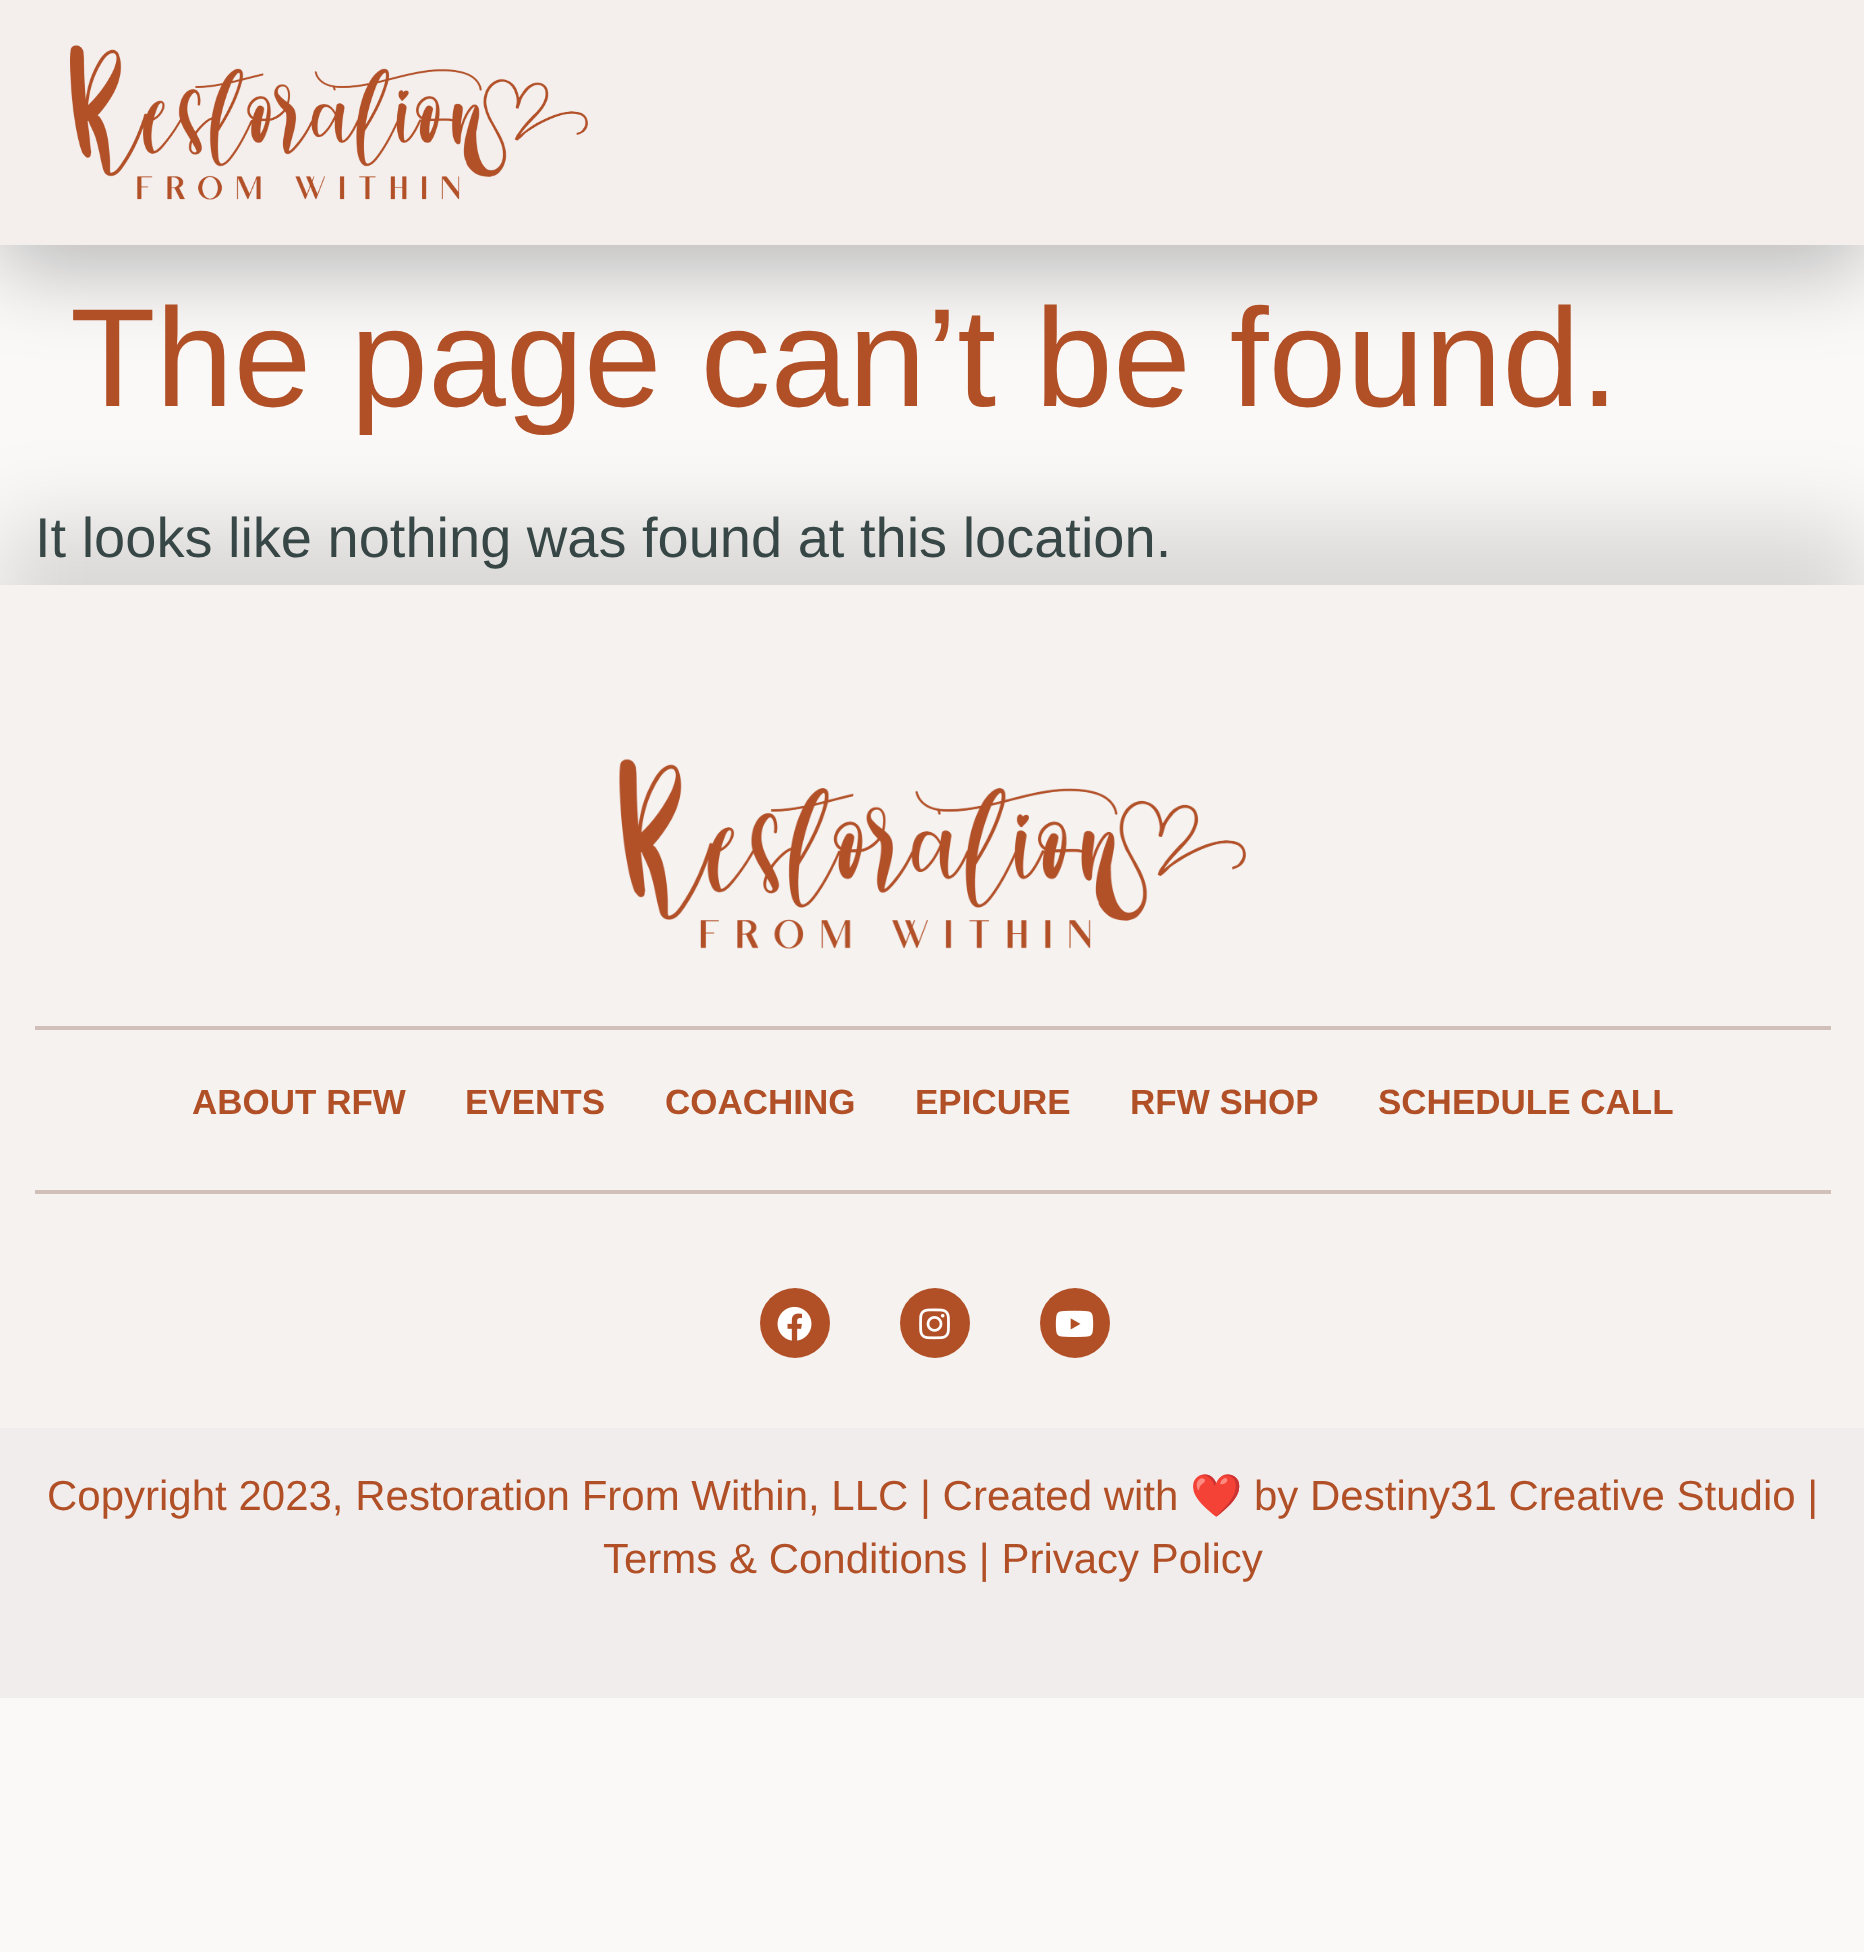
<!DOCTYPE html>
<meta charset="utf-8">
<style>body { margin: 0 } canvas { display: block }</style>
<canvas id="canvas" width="1864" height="1952"></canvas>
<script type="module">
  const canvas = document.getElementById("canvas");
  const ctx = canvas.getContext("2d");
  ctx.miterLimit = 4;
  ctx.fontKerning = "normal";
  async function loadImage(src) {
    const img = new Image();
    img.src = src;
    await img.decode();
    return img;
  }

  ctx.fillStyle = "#faf9f8";
  ctx.fillRect(0, 0, 1864, 1952);
  ctx.fillStyle = "rgba(0, 0, 0, 0.26)";
  ctx.filter = "blur(42px)";
  ctx.beginPath();
  ctx.rect(0, 25, 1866, 245);
  ctx.fill();
  ctx.filter = "none";
  ctx.fillStyle = "#f4efed";
  ctx.fillRect(0, 0, 1864, 245);
  ctx.drawImage(await loadImage("img1.png"), 70, 45, 518, 155);
  ctx.font = "140px Liberation Sans";
  ctx.fillStyle = "#b14f26";
  ctx.fillText("The page can’t be found.", 70, 406);
  ctx.font = "56px Liberation Sans";
  ctx.fillStyle = "#3d4e4d";
  ctx.fillText("It looks like nothing was found at this location.", 35, 557);
  ctx.fillStyle = "rgba(0, 0, 0, 0.13)";
  ctx.filter = "blur(42px)";
  ctx.beginPath();
  ctx.rect(0, 522, 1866, 843);
  ctx.fill();
  ctx.filter = "none";
  ctx.fillStyle = "#f5f2f0";
  ctx.fillRect(0, 585, 1864, 843);
  ctx.drawImage(await loadImage("img2.png"), 619, 759, 627, 190);
  ctx.fillStyle = "#d1c0ba";
  ctx.fillRect(35, 1026, 1796, 4);
  ctx.font = "bold 35px Liberation Sans";
  ctx.fillStyle = "#b14f26";
  ctx.fillText("ABOUT RFW", 192, 1114);
  ctx.fillText("EVENTS", 465, 1114);
  ctx.fillText("COACHING", 665, 1114);
  ctx.fillText("EPICURE", 915, 1114);
  ctx.fillText("RFW SHOP", 1130, 1114);
  ctx.fillText("SCHEDULE CALL", 1378, 1114);
  ctx.fillStyle = "#d1c0ba";
  ctx.fillRect(35, 1190, 1796, 4);
  ctx.fillStyle = "#b14f26";
  ctx.beginPath();
  ctx.arc(795, 1323, 35, 0, Math.PI * 2);
  ctx.fill();
  ctx.drawImage(await loadImage("img3.png"), 777, 1306, 35, 35);
  ctx.beginPath();
  ctx.arc(935, 1323, 35, 0, Math.PI * 2);
  ctx.fill();
  ctx.drawImage(await loadImage("img4.png"), 919, 1308, 31, 32);
  ctx.beginPath();
  ctx.arc(1075, 1323, 35, 0, Math.PI * 2);
  ctx.fill();
  ctx.drawImage(await loadImage("img5.png"), 1055, 1310, 39, 27);
  ctx.fillStyle = "#f1edec";
  ctx.fillRect(0, 1428, 1864, 270);
  ctx.font = "42px Liberation Sans";
  ctx.fillStyle = "#b14f26";
  ctx.fillText("Copyright 2023, Restoration From Within, LLC | Created with", 47, 1510);
  ctx.font = "42px Noto Color Emoji";
  ctx.fillText("❤️", 1190, 1510);
  ctx.font = "42px Liberation Sans";
  ctx.fillText("by Destiny31 Creative Studio |", 1254, 1510);
  ctx.fillText("Terms & Conditions | Privacy Policy", 603, 1573);
</script>
